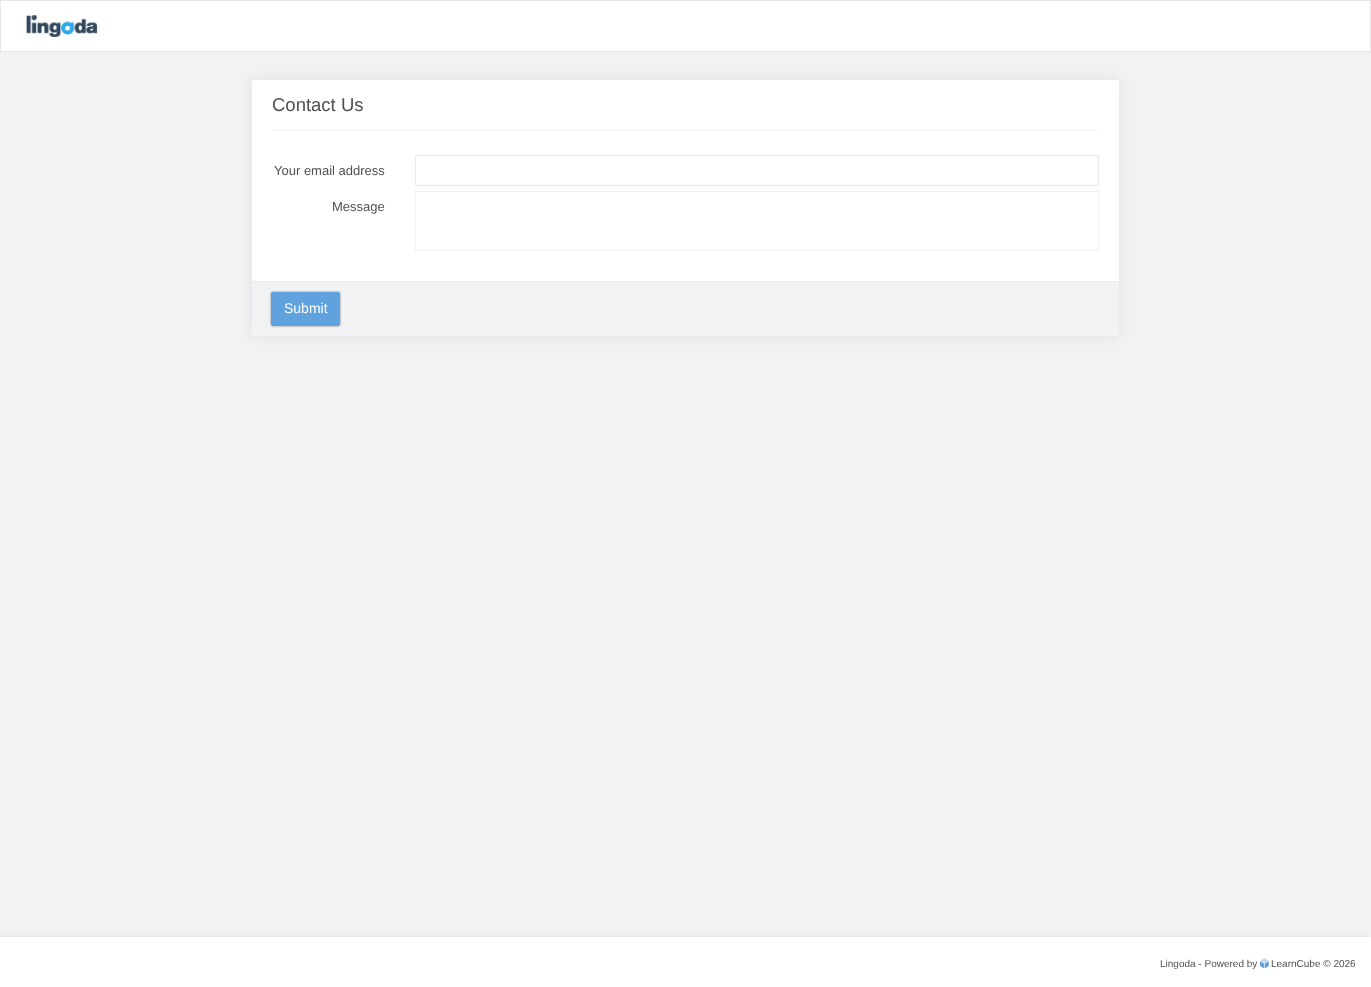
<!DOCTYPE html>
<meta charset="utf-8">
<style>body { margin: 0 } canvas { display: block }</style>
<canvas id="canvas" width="1371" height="987"></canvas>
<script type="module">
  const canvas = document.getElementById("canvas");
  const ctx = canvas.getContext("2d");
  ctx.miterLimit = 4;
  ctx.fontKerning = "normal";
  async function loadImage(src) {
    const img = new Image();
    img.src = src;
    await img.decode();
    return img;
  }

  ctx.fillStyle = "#f2f2f2";
  ctx.fillRect(0, 0, 1371, 987);
  ctx.fillStyle = "#ffffff";
  ctx.beginPath();
  ctx.rect(0.5, 0.5, 1370, 51);
  ctx.fill();
  ctx.strokeStyle = "#e7e7e7";
  ctx.stroke();
  ctx.drawImage(await loadImage("img1.png"), 26, 15, 72, 22);
  ctx.fillStyle = "rgba(40, 75, 124, 0.1)";
  ctx.filter = "blur(8px)";
  ctx.beginPath();
  ctx.roundRect(252, 80, 867, 256, 3);
  ctx.fill();
  ctx.filter = "none";
  ctx.fillStyle = "#ffffff";
  ctx.beginPath();
  ctx.roundRect(252, 80, 867, 256, 3);
  ctx.fill();
  ctx.font = "18.5px Liberation Sans";
  ctx.fillStyle = "#515151";
  ctx.fillText("Contact Us", 272, 111);
  ctx.fillStyle = "#f2f2f2";
  ctx.fillRect(272, 130, 827, 1);
  ctx.font = "13px Liberation Sans";
  ctx.fillStyle = "#515151";
  ctx.fillText("Your email address", 274, 175);
  ctx.strokeStyle = "#e9e9e9";
  ctx.strokeRect(415.5, 155.5, 683, 30);
  ctx.fillText("Message", 332, 211);
  ctx.strokeStyle = "#f2f2f2";
  ctx.strokeRect(415.5, 191.5, 683, 59);
  ctx.fillStyle = "#f0f2f4";
  ctx.beginPath();
  ctx.roundRect(252, 281, 867, 55, [0, 0, 3, 3]);
  ctx.fill();
  ctx.fillStyle = "#eaedf0";
  ctx.fillRect(252, 281, 867, 1);
  ctx.fillStyle = "#888888";
  ctx.filter = "blur(1px)";
  ctx.beginPath();
  ctx.roundRect(271, 292, 69, 34, 2);
  ctx.fill();
  ctx.filter = "none";
  ctx.fillStyle = "#5fa2dd";
  ctx.beginPath();
  ctx.roundRect(271.5, 292.5, 68, 33, 1.5);
  ctx.fill();
  ctx.strokeStyle = "#5fa2dd";
  ctx.stroke();
  ctx.font = "14px Liberation Sans";
  ctx.fillStyle = "#ffffff";
  ctx.fillText("Submit", 284, 313);
  ctx.fillStyle = "rgba(40, 75, 124, 0.1)";
  ctx.filter = "blur(2px)";
  ctx.beginPath();
  ctx.rect(0, 937, 1371, 50);
  ctx.fill();
  ctx.filter = "none";
  ctx.fillStyle = "#ffffff";
  ctx.fillRect(0, 937, 1371, 50);
  ctx.font = "10px Liberation Sans";
  ctx.fillStyle = "#515151";
  ctx.fillText("Lingoda - Powered by", 1160, 967);
  ctx.drawImage(await loadImage("img3.png"), 1260, 961, 9, 8);
  ctx.drawImage(await loadImage("img2.png"), 1260, 958, 9, 5);
  ctx.fillText("LearnCube © 2026", 1271, 967);
</script>
